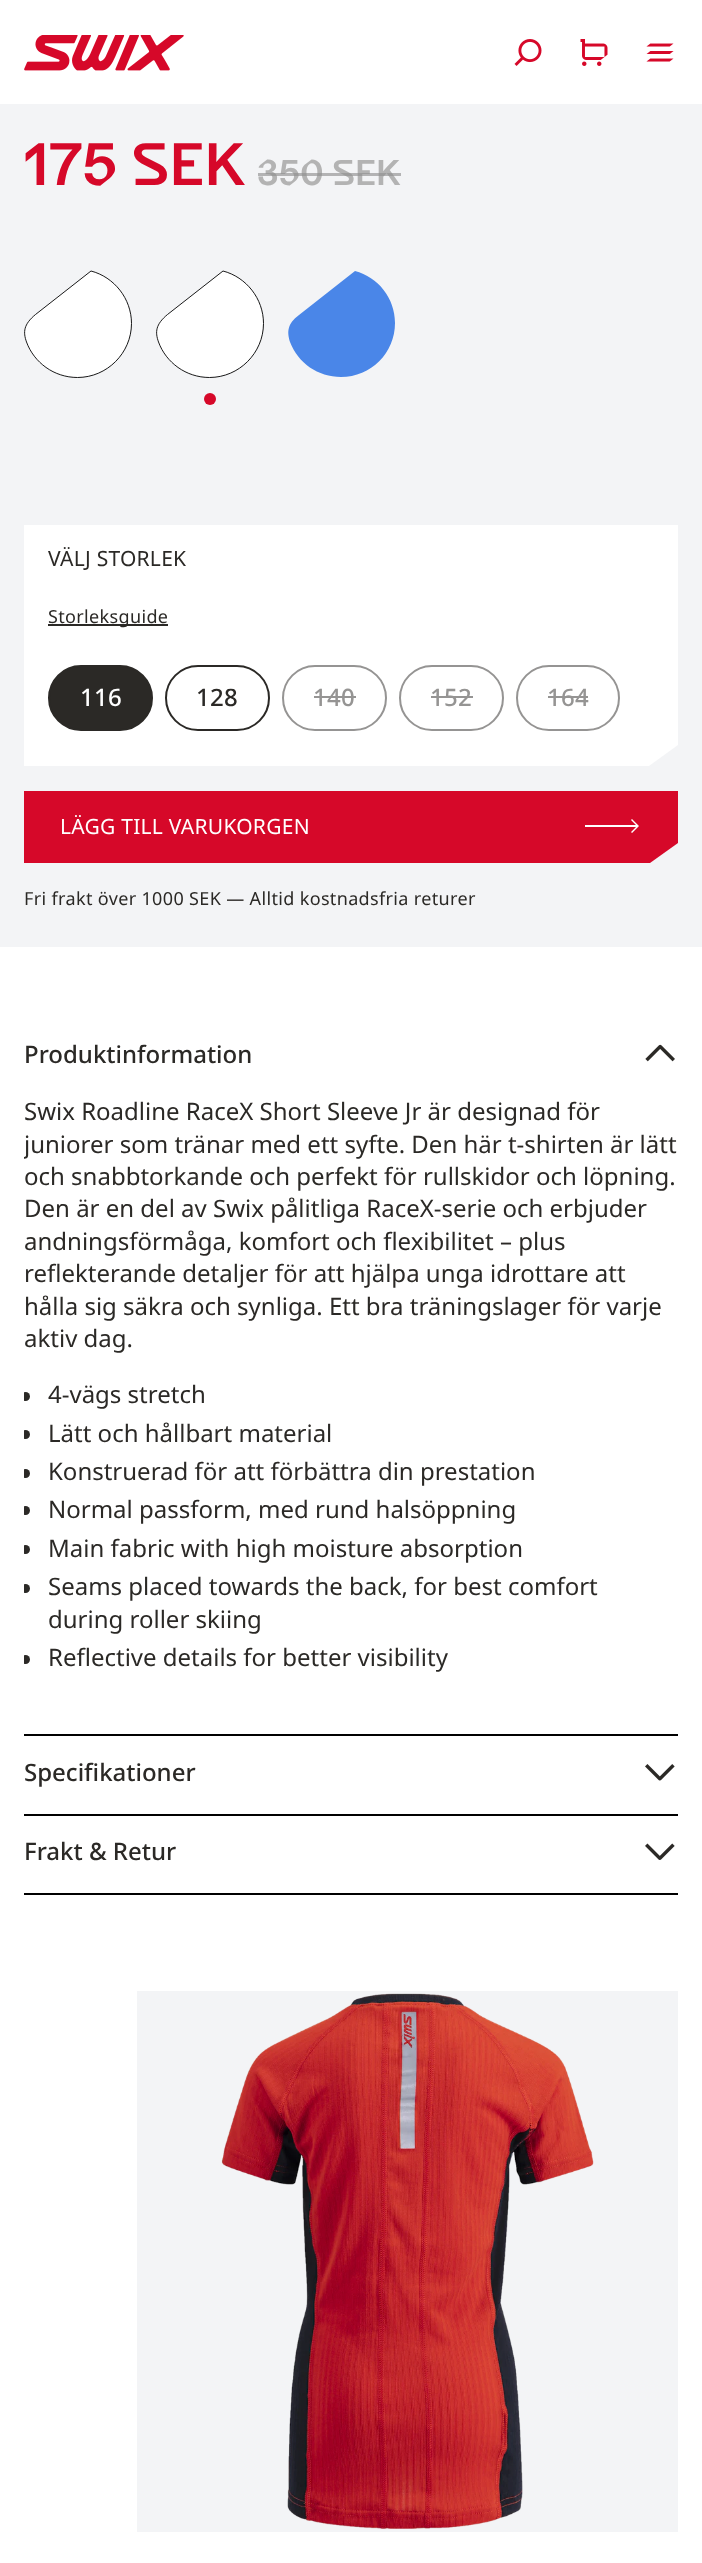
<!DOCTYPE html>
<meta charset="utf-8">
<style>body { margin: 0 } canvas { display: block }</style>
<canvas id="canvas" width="702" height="2563"></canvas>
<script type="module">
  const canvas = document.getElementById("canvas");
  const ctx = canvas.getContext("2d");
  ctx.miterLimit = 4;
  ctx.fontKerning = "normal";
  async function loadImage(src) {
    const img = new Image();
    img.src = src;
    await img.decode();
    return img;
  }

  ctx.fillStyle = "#ffffff";
  ctx.fillRect(0, 0, 702, 2563);
  ctx.drawImage(await loadImage("img1.png"), 24, 35, 160, 36);
  ctx.drawImage(await loadImage("img2.png"), 514, 39, 28, 27);
  ctx.drawImage(await loadImage("img3.png"), 580, 39, 28, 27);
  ctx.drawImage(await loadImage("img4.png"), 646, 43, 28, 19);
  ctx.fillStyle = "#f3f4f6";
  ctx.fillRect(0, 104, 702, 843);
  ctx.font = "500 60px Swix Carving";
  ctx.fillStyle = "#d60829";
  ctx.fillText("175 SEK", 24, 185);
  ctx.font = "500 36px Swix Carving";
  ctx.fillStyle = "#b3b3b3";
  ctx.fillText("350 SEK", 257, 185);
  ctx.fillStyle = "rgba(143, 143, 142, 0.64)";
  ctx.fillRect(258, 173, 143, 3);
  ctx.fillStyle = "#ffffff";
  ctx.beginPath();
  ctx.moveTo(91, 271);
  ctx.lineTo(35, 315);
  ctx.bezierCurveTo(23, 324, 23, 332, 26, 342);
  ctx.bezierCurveTo(34, 363, 54, 377, 77, 377);
  ctx.bezierCurveTo(107, 377, 131, 353, 131, 323);
  ctx.bezierCurveTo(131, 298, 114, 277, 91, 271);
  ctx.fill();
  ctx.beginPath();
  ctx.moveTo(91, 271);
  ctx.lineTo(35.5, 314.5);
  ctx.bezierCurveTo(23.5, 324.5, 23, 332, 26.5, 342);
  ctx.bezierCurveTo(34, 362.5, 54, 377.5, 77.5, 377.5);
  ctx.bezierCurveTo(107, 377.5, 131.5, 353, 131.5, 323.5);
  ctx.bezierCurveTo(131.5, 298.5, 114, 277, 91, 271);
  ctx.strokeStyle = "#000000";
  ctx.lineWidth = 0.9;
  ctx.stroke();
  ctx.beginPath();
  ctx.moveTo(223, 271);
  ctx.lineTo(167, 315);
  ctx.bezierCurveTo(155, 324, 155, 332, 158, 342);
  ctx.bezierCurveTo(166, 363, 186, 377, 209, 377);
  ctx.bezierCurveTo(239, 377, 263, 353, 263, 323);
  ctx.bezierCurveTo(263, 298, 246, 277, 223, 271);
  ctx.fill();
  ctx.beginPath();
  ctx.moveTo(223, 271);
  ctx.lineTo(167.5, 314.5);
  ctx.bezierCurveTo(155.5, 324.5, 155, 332, 158.5, 342);
  ctx.bezierCurveTo(166, 362.5, 186, 377.5, 209.5, 377.5);
  ctx.bezierCurveTo(239, 377.5, 263.5, 353, 263.5, 323.5);
  ctx.bezierCurveTo(263.5, 298.5, 246, 277, 223, 271);
  ctx.stroke();
  ctx.fillStyle = "#d60829";
  ctx.beginPath();
  ctx.arc(210, 399, 6, 0, Math.PI * 2);
  ctx.fill();
  ctx.fillStyle = "#4a86e8";
  ctx.beginPath();
  ctx.moveTo(355, 271);
  ctx.lineTo(299, 315);
  ctx.bezierCurveTo(287, 324, 287, 332, 290, 342);
  ctx.bezierCurveTo(298, 363, 318, 377, 341, 377);
  ctx.bezierCurveTo(371, 377, 395, 353, 395, 323);
  ctx.bezierCurveTo(395, 298, 378, 277, 355, 271);
  ctx.fill();
  ctx.fillStyle = "#ffffff";
  ctx.beginPath();
  ctx.moveTo(24, 525);
  ctx.lineTo(24, 766);
  ctx.lineTo(649, 766);
  ctx.lineTo(678, 745);
  ctx.lineTo(678, 525);
  ctx.closePath();
  ctx.fill();
  ctx.letterSpacing = "0.25px";
  ctx.font = "21px Noto Sans";
  ctx.fillStyle = "#2b2926";
  ctx.fillText("VÄLJ STORLEK", 48, 566);
  ctx.fillRect(48, 624, 120, 2);
  ctx.letterSpacing = "0.35px";
  ctx.font = "18px Noto Sans";
  ctx.fillText("Storleksguide", 48, 623);
  ctx.beginPath();
  ctx.roundRect(49, 666, 103, 64, 32);
  ctx.fill();
  ctx.strokeStyle = "#2b2926";
  ctx.lineWidth = 2;
  ctx.stroke();
  ctx.letterSpacing = "0.25px";
  ctx.font = "500 24px Noto Sans";
  ctx.fillStyle = "#ffffff";
  ctx.fillText("116", 80, 706);
  ctx.beginPath();
  ctx.roundRect(166, 666, 103, 64, 32);
  ctx.stroke();
  ctx.fillStyle = "#2b2926";
  ctx.fillText("128", 196, 706);
  ctx.beginPath();
  ctx.roundRect(283, 666, 103, 64, 32);
  ctx.strokeStyle = "#959493";
  ctx.stroke();
  ctx.fillStyle = "#959493";
  ctx.fillText("140", 313, 706);
  ctx.fillRect(314, 696, 42, 2);
  ctx.beginPath();
  ctx.roundRect(400, 666, 103, 64, 32);
  ctx.stroke();
  ctx.fillText("152", 430, 706);
  ctx.fillRect(431, 696, 42, 2);
  ctx.beginPath();
  ctx.roundRect(517, 666, 102, 64, 32);
  ctx.stroke();
  ctx.fillText("164", 547, 706);
  ctx.fillRect(548, 696, 40, 2);
  ctx.fillStyle = "#d60829";
  ctx.beginPath();
  ctx.moveTo(24, 791);
  ctx.lineTo(24, 863);
  ctx.lineTo(650, 863);
  ctx.lineTo(678, 843);
  ctx.lineTo(678, 791);
  ctx.closePath();
  ctx.fill();
  ctx.font = "21px Noto Sans";
  ctx.fillStyle = "#ffffff";
  ctx.fillText("LÄGG TILL VARUKORGEN", 60, 834);
  ctx.beginPath();
  ctx.moveTo(632, 833);
  ctx.lineTo(631, 832);
  ctx.lineTo(636, 827);
  ctx.lineTo(585, 827);
  ctx.lineTo(585, 825);
  ctx.lineTo(636, 825);
  ctx.lineTo(631, 820);
  ctx.lineTo(632, 819);
  ctx.lineTo(639, 826);
  ctx.closePath();
  ctx.fill();
  ctx.letterSpacing = "0.35px";
  ctx.font = "18px Noto Sans";
  ctx.fillStyle = "#2b2926";
  ctx.fillText("Fri frakt över 1000 SEK — Alltid kostnadsfria returer", 24, 905);
  ctx.fillStyle = "#000000";
  ctx.fillRect(24, 1734, 654, 2);
  ctx.letterSpacing = "0px";
  ctx.font = "500 24px Noto Sans";
  ctx.fillStyle = "#2b2926";
  ctx.fillText("Produktinformation", 24, 1063);
  ctx.drawImage(await loadImage("img5.png"), 645, 1044, 30, 18);
  ctx.font = "24px Noto Sans";
  ctx.fillText("Swix Roadline RaceX Short Sleeve Jr är designad för", 24, 1120);
  ctx.save();
  ctx.beginPath();
  ctx.rect(24, 1097, 654, 637);
  ctx.clip();
  ctx.fillText("juniorer som tränar med ett syfte. Den här t-shirten är lätt", 24, 1153);
  ctx.restore();
  ctx.fillText("och snabbtorkande och perfekt för rullskidor och löpning.", 24, 1185);
  ctx.fillText("Den är en del av Swix pålitliga RaceX-serie och erbjuder", 24, 1217);
  ctx.fillText("andningsförmåga, komfort och flexibilitet – plus", 24, 1250);
  ctx.fillText("reflekterande detaljer för att hjälpa unga idrottare att", 24, 1282);
  ctx.fillText("hålla sig säkra och synliga. Ett bra träningslager för varje", 24, 1315);
  ctx.fillText("aktiv dag.", 24, 1347);
  ctx.save();
  ctx.beginPath();
  ctx.rect(24, 1097, 654, 637);
  ctx.clip();
  ctx.beginPath();
  ctx.arc(25.5, 1396.5, 4.5, 0, Math.PI * 2);
  ctx.fill();
  ctx.restore();
  ctx.fillText("4-vägs stretch", 48, 1403);
  ctx.save();
  ctx.beginPath();
  ctx.rect(24, 1097, 654, 637);
  ctx.clip();
  ctx.beginPath();
  ctx.arc(25.5, 1434.5, 4.5, 0, Math.PI * 2);
  ctx.fill();
  ctx.restore();
  ctx.fillText("Lätt och hållbart material", 48, 1442);
  ctx.save();
  ctx.beginPath();
  ctx.rect(24, 1097, 654, 637);
  ctx.clip();
  ctx.beginPath();
  ctx.arc(25.5, 1473.5, 4.5, 0, Math.PI * 2);
  ctx.fill();
  ctx.restore();
  ctx.fillText("Konstruerad för att förbättra din prestation", 48, 1480);
  ctx.save();
  ctx.beginPath();
  ctx.rect(24, 1097, 654, 637);
  ctx.clip();
  ctx.beginPath();
  ctx.arc(25.5, 1510.5, 4.5, 0, Math.PI * 2);
  ctx.fill();
  ctx.restore();
  ctx.fillText("Normal passform, med rund halsöppning", 48, 1518);
  ctx.save();
  ctx.beginPath();
  ctx.rect(24, 1097, 654, 637);
  ctx.clip();
  ctx.beginPath();
  ctx.arc(25.5, 1549.5, 4.5, 0, Math.PI * 2);
  ctx.fill();
  ctx.restore();
  ctx.fillText("Main fabric with high moisture absorption", 48, 1557);
  ctx.save();
  ctx.beginPath();
  ctx.rect(24, 1097, 654, 637);
  ctx.clip();
  ctx.beginPath();
  ctx.arc(25.5, 1588.5, 4.5, 0, Math.PI * 2);
  ctx.fill();
  ctx.restore();
  ctx.fillText("Seams placed towards the back, for best comfort", 48, 1595);
  ctx.fillText("during roller skiing", 48, 1628);
  ctx.save();
  ctx.beginPath();
  ctx.rect(24, 1097, 654, 637);
  ctx.clip();
  ctx.beginPath();
  ctx.arc(25.5, 1659.5, 4.5, 0, Math.PI * 2);
  ctx.fill();
  ctx.restore();
  ctx.fillText("Reflective details for better visibility", 48, 1666);
  ctx.fillStyle = "#000000";
  ctx.fillRect(24, 1814, 654, 2);
  ctx.font = "500 24px Noto Sans";
  ctx.fillStyle = "#2b2926";
  ctx.fillText("Specifikationer", 24, 1781);
  ctx.drawImage(await loadImage("img6.png"), 645, 1764, 30, 17);
  ctx.fillStyle = "#000000";
  ctx.fillRect(24, 1893, 654, 2);
  ctx.fillStyle = "#2b2926";
  ctx.fillText("Frakt & Retur", 24, 1860);
  ctx.drawImage(await loadImage("img7.png"), 645, 1843, 30, 17);
  ctx.fillStyle = "#f3f4f6";
  ctx.fillRect(137, 1991, 541, 541);
  ctx.drawImage(await loadImage("img8.png"), 221, 1993, 373, 536);
</script>
